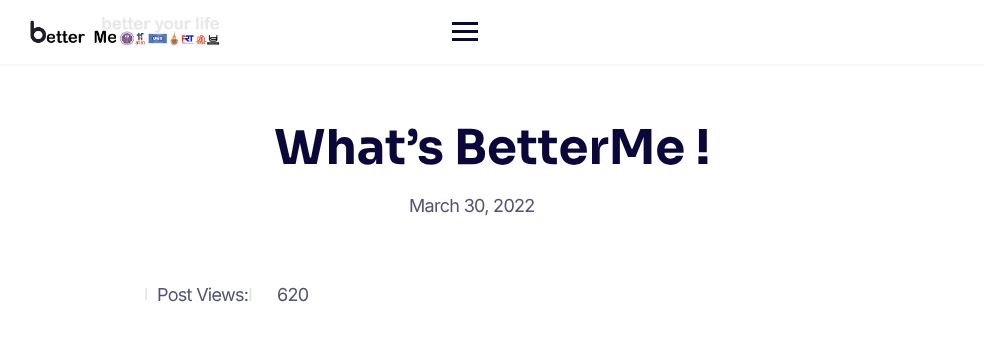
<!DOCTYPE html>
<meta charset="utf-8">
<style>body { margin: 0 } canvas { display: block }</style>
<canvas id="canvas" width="984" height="341"></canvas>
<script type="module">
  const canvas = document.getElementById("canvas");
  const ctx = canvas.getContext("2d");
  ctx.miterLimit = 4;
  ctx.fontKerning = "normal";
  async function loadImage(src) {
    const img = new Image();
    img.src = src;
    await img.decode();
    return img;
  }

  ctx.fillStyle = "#ffffff";
  ctx.fillRect(0, 0, 984, 341);
  ctx.fillStyle = "#f8f8f8";
  ctx.fillRect(0, 64, 984, 2);
  ctx.drawImage(await loadImage("img1.png"), 30, 17, 191, 29);
  ctx.fillStyle = "#0a083b";
  ctx.fillRect(452, 30, 26, 3);
  ctx.fillRect(452, 22, 26, 3);
  ctx.fillRect(452, 38, 26, 3);
  ctx.font = "bold 48px Sora";
  ctx.fillText("What’s BetterMe !", 274, 164);
  ctx.letterSpacing = "-0.7px";
  ctx.font = "18px Inter";
  ctx.fillStyle = "#545276";
  ctx.fillText("March 30, 2022", 409, 212);
  ctx.font = "16px Inter";
  ctx.fillStyle = "#dde3e7";
  ctx.fillText("I", 144, 300);
  ctx.font = "18px Inter";
  ctx.fillStyle = "#545276";
  ctx.fillText("Post Views:", 157, 301);
  ctx.fillStyle = "#dde3e7";
  ctx.fillText("I", 248, 301);
  ctx.fillStyle = "#545276";
  ctx.fillText("620", 277, 301);
</script>
